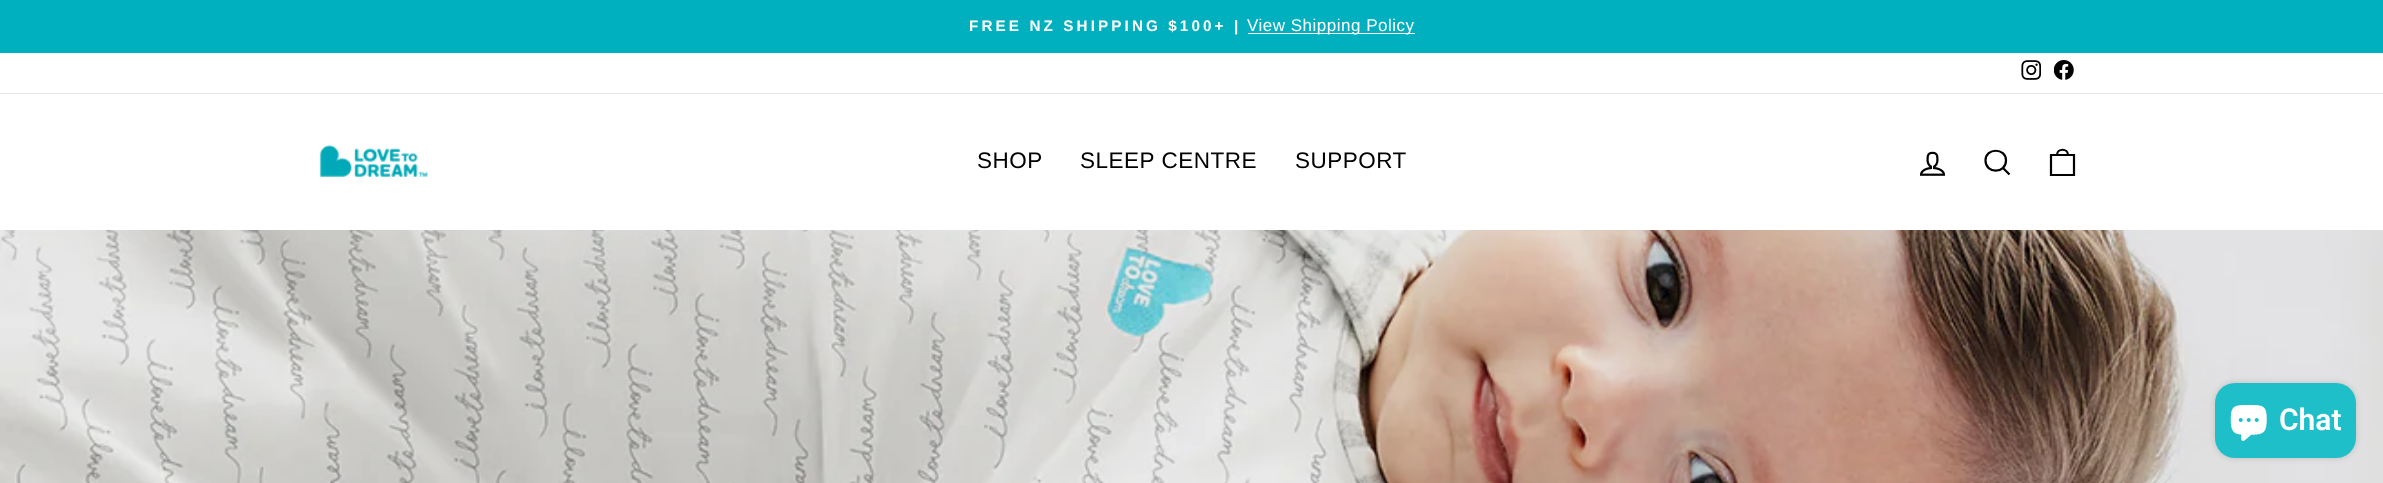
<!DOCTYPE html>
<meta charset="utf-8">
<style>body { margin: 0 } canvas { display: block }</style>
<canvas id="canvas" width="2383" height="483"></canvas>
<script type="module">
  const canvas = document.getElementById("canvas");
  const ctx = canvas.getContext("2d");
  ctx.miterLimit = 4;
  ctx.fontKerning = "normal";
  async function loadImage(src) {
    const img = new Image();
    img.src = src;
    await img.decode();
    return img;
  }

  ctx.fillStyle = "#ffffff";
  ctx.fillRect(0, 0, 2383, 483);
  ctx.fillStyle = "#00b0be";
  ctx.fillRect(0, 0, 2383, 53);
  ctx.letterSpacing = "3.1px";
  ctx.font = "bold 15.25px Arimo";
  ctx.fillStyle = "#ffffff";
  ctx.fillText("FREE NZ SHIPPING $100+ |", 969, 31);
  ctx.fillRect(1248, 33, 167, 1);
  ctx.letterSpacing = "0.5px";
  ctx.font = "17px Arimo";
  ctx.fillText("View Shipping Policy", 1247, 31);
  ctx.drawImage(await loadImage("img1.png"), 2021, 60, 20, 20);
  ctx.drawImage(await loadImage("img2.png"), 2054, 60, 20, 20);
  ctx.fillStyle = "#e6e6e6";
  ctx.fillRect(0, 93, 2383, 1);
  ctx.drawImage(await loadImage("img3.png"), 319, 145, 109, 32);
  ctx.font = "22.5px Arimo";
  ctx.fillStyle = "#000000";
  ctx.fillText("SHOP", 977, 168);
  ctx.fillText("SLEEP CENTRE", 1080, 168);
  ctx.fillText("SUPPORT", 1295, 168);
  ctx.drawImage(await loadImage("img4.png"), 1919, 151, 27, 25);
  ctx.beginPath();
  ctx.moveTo(2006, 160.5);
  ctx.bezierCurveTo(2006, 174, 1985.5, 174, 1985.5, 160.5);
  ctx.bezierCurveTo(1985.5, 147.5, 2006, 147.5, 2006, 160.5);
  ctx.closePath();
  ctx.moveTo(2009.5, 174.5);
  ctx.lineTo(2003, 168);
  ctx.strokeStyle = "#000000";
  ctx.lineWidth = 2.2;
  ctx.stroke();
  ctx.beginPath();
  ctx.moveTo(2051, 155);
  ctx.lineTo(2074, 155);
  ctx.lineTo(2074, 175);
  ctx.lineTo(2051, 175);
  ctx.closePath();
  ctx.moveTo(2057, 155);
  ctx.bezierCurveTo(2057, 148, 2068, 148, 2068, 155);
  ctx.stroke();
  ctx.drawImage(await loadImage("img5.png"), 0, 230, 2383, 253);
  ctx.fillStyle = "rgba(0, 0, 0, 0.15)";
  ctx.filter = "blur(3px)";
  ctx.beginPath();
  ctx.roundRect(2215, 383, 141, 75, 20);
  ctx.fill();
  ctx.filter = "none";
  ctx.fillStyle = "#1fbfca";
  ctx.beginPath();
  ctx.roundRect(2215, 383, 141, 75, 20);
  ctx.fill();
  ctx.drawImage(await loadImage("img6.png"), 2230, 405, 37, 36);
  ctx.letterSpacing = "0px";
  ctx.font = "600 30px Roboto";
  ctx.fillStyle = "#ffffff";
  ctx.fillText("Chat", 2279, 430);
</script>
